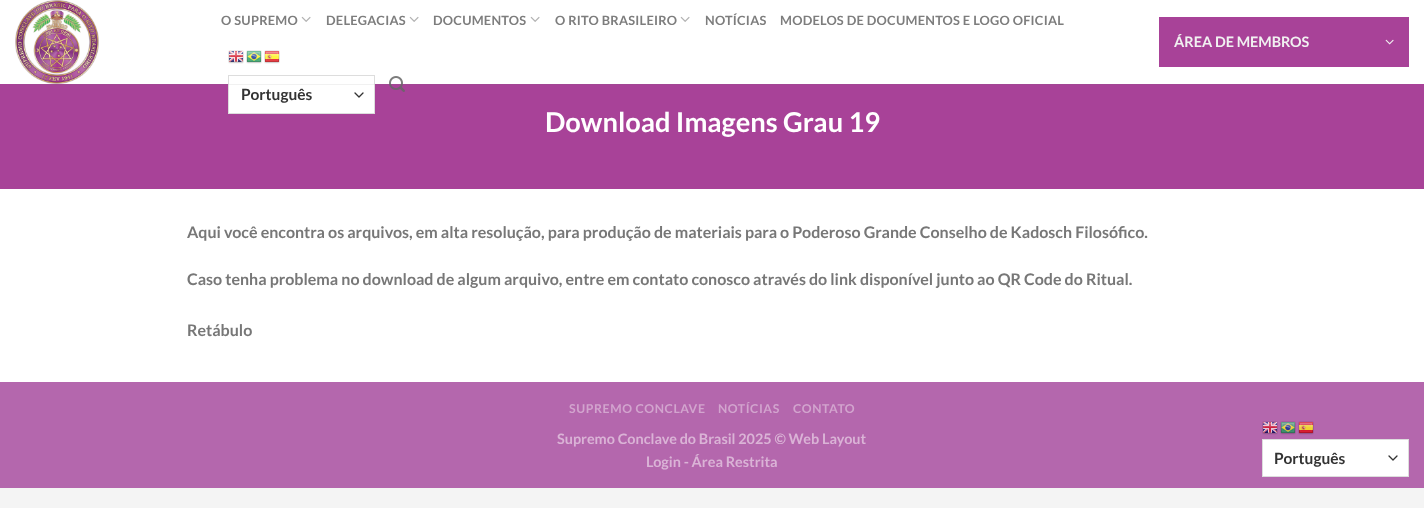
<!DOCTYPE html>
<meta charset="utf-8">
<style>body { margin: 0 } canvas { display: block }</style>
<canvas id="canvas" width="1424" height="508"></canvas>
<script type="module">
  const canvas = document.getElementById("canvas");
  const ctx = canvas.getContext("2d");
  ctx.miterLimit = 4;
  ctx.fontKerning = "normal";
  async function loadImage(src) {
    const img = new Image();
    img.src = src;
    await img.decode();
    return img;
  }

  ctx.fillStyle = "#f4f4f4";
  ctx.fillRect(0, 0, 1424, 508);
  ctx.fillStyle = "#ffffff";
  ctx.fillRect(0, 0, 1424, 382);
  ctx.drawImage(await loadImage("img1.png"), 15, 0, 84, 84);
  ctx.letterSpacing = "0.25px";
  ctx.font = "bold 12.8px Lato";
  ctx.fillStyle = "#7d7d7d";
  ctx.fillText("O SUPREMO", 221, 25);
  ctx.drawImage(await loadImage("img2.png"), 301, 16, 10, 6);
  ctx.fillText("DELEGACIAS", 326, 25);
  ctx.drawImage(await loadImage("img2.png"), 409, 16, 10, 6);
  ctx.fillText("DOCUMENTOS", 433, 25);
  ctx.drawImage(await loadImage("img2.png"), 530, 16, 10, 6);
  ctx.fillText("O RITO BRASILEIRO", 555, 25);
  ctx.drawImage(await loadImage("img2.png"), 680, 16, 10, 6);
  ctx.fillText("NOTÍCIAS", 705, 25);
  ctx.fillText("MODELOS DE DOCUMENTOS E LOGO OFICIAL", 780, 25);
  ctx.fillStyle = "#a84298";
  ctx.fillRect(0, 84, 1424, 105);
  ctx.drawImage(await loadImage("img3.png"), 389, 76, 16, 16);
  ctx.drawImage(await loadImage("img4.png"), 228, 50, 16, 14);
  ctx.drawImage(await loadImage("img5.png"), 246, 50, 16, 14);
  ctx.drawImage(await loadImage("img6.png"), 264, 50, 16, 14);
  ctx.fillStyle = "#ffffff";
  ctx.fillRect(229, 84, 145, 29);
  ctx.beginPath();
  ctx.moveTo(355, 93);
  ctx.lineTo(359, 97);
  ctx.lineTo(363, 93);
  ctx.strokeStyle = "#333333";
  ctx.lineWidth = 1.3;
  ctx.lineCap = "round";
  ctx.lineJoin = "round";
  ctx.stroke();
  ctx.strokeStyle = "#dddddd";
  ctx.lineWidth = 1;
  ctx.lineJoin = "miter";
  ctx.strokeRect(228.5, 75.5, 146, 38);
  ctx.letterSpacing = "0px";
  ctx.font = "bold 15.5px Lato";
  ctx.fillStyle = "#333333";
  ctx.fillText("Português", 241, 100);
  ctx.fillStyle = "#a84298";
  ctx.fillRect(1159, 17, 250, 50);
  ctx.font = "bold 14.4px Lato";
  ctx.fillStyle = "#f1f1f1";
  ctx.fillText("ÁREA DE MEMBROS", 1174, 47);
  ctx.drawImage(await loadImage("img7.png"), 1385, 39, 9, 6);
  ctx.fillStyle = "rgba(119, 119, 119, 0.1)";
  ctx.fillRect(15, 84, 1394, 1);
  ctx.font = "bold 27.25px Lato";
  ctx.fillStyle = "#ffffff";
  ctx.fillText("Download Imagens Grau 19", 545, 132);
  ctx.font = "bold 16px Lato";
  ctx.fillStyle = "#777777";
  ctx.fillText("Aqui você encontra os arquivos, em alta resolução, para produção de materiais para o Poderoso Grande Conselho de Kadosch Filosófico.", 187, 238);
  ctx.fillText("Caso tenha problema no download de algum arquivo, entre em contato conosco através do link disponível junto ao QR Code do Ritual.", 187, 285);
  ctx.fillText("Retábulo", 187, 336);
  ctx.fillStyle = "#b467ad";
  ctx.fillRect(0, 382, 1424, 106);
  ctx.letterSpacing = "0.6px";
  ctx.font = "bold 12.25px Lato";
  ctx.fillStyle = "#d2a4ce";
  ctx.fillText("SUPREMO CONCLAVE", 569, 413);
  ctx.fillText("NOTÍCIAS", 718, 413);
  ctx.fillText("CONTATO", 793, 413);
  ctx.letterSpacing = "0px";
  ctx.font = "bold 14.4px Lato";
  ctx.fillStyle = "#dab3d6";
  ctx.fillText("Supremo Conclave do Brasil 2025 © Web Layout", 557, 444);
  ctx.fillText("Login - Área Restrita", 646, 467);
  ctx.drawImage(await loadImage("img8.png"), 1262, 421, 16, 14);
  ctx.drawImage(await loadImage("img9.png"), 1280, 421, 16, 14);
  ctx.drawImage(await loadImage("img10.png"), 1298, 421, 16, 14);
  ctx.fillStyle = "#ffffff";
  ctx.fillRect(1263, 440, 145, 36);
  ctx.beginPath();
  ctx.moveTo(1389, 456);
  ctx.lineTo(1393, 460);
  ctx.lineTo(1397, 456);
  ctx.strokeStyle = "#333333";
  ctx.lineWidth = 1.3;
  ctx.lineJoin = "round";
  ctx.stroke();
  ctx.strokeStyle = "#dddddd";
  ctx.lineWidth = 1;
  ctx.lineJoin = "miter";
  ctx.strokeRect(1262.5, 439.5, 146, 37);
  ctx.font = "bold 15.5px Lato";
  ctx.fillStyle = "#333333";
  ctx.fillText("Português", 1274, 464);
</script>
